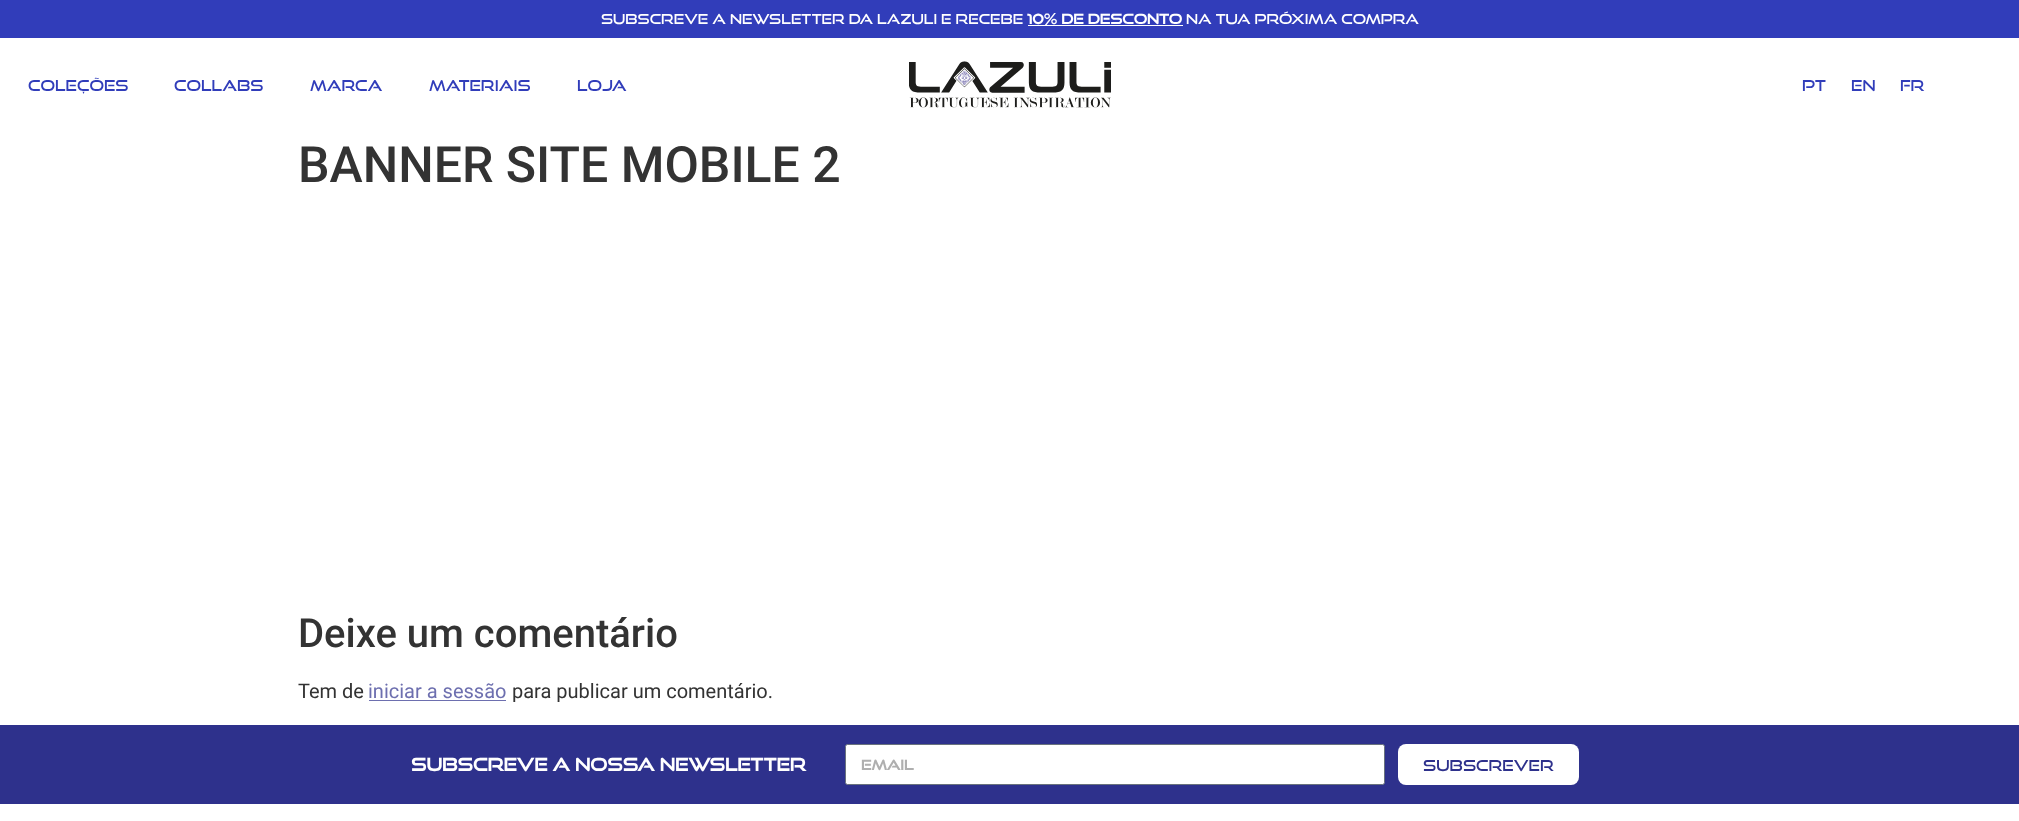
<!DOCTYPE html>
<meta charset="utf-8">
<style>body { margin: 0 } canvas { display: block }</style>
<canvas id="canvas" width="2019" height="821"></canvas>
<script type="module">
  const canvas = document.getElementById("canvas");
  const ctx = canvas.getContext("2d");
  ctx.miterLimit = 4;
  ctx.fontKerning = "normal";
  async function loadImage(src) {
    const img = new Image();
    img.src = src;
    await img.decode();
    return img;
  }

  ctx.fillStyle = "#ffffff";
  ctx.fillRect(0, 0, 2019, 821);
  ctx.fillStyle = "#313dba";
  ctx.fillRect(0, 0, 2019, 38);
  ctx.font = "13.75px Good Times";
  ctx.fillStyle = "#ffffff";
  ctx.fillText("SUBSCREVE A NEWSLETTER DA LAZULI E RECEBE", 601, 24);
  ctx.font = "bold 13.75px Good Times";
  ctx.fillText("10% DE DESCONTO", 1027, 24);
  ctx.fillRect(1028, 25, 155, 1);
  ctx.font = "13.75px Good Times";
  ctx.fillText("NA TUA PRÓXIMA COMPRA", 1186, 24);
  ctx.font = "15px Good Times";
  ctx.fillStyle = "#313dba";
  ctx.fillText("COLEÇÕES", 28, 91);
  ctx.fillText("COLLABS", 174, 91);
  ctx.fillText("MARCA", 310, 91);
  ctx.fillText("MATERIAIS", 429, 91);
  ctx.fillText("LOJA", 577, 91);
  ctx.drawImage(await loadImage("img1.png"), 909, 61, 202, 47);
  ctx.fillText("PT", 1802, 91);
  ctx.fillText("EN", 1851, 91);
  ctx.fillText("FR", 1900, 91);
  ctx.font = "500 50px Roboto";
  ctx.fillStyle = "#333333";
  ctx.fillText("BANNER SITE MOBILE 2", 298, 182);
  ctx.font = "500 40px Roboto";
  ctx.fillText("Deixe um comentário", 298, 647);
  ctx.font = "20px Roboto";
  ctx.fillText("Tem de", 298, 698);
  ctx.fillStyle = "#6d6faf";
  ctx.fillText("iniciar a sessão", 368, 698);
  ctx.fillRect(369, 700, 137, 1);
  ctx.fillStyle = "#333333";
  ctx.fillText("para publicar um comentário.", 512, 698);
  ctx.fillStyle = "#2e318c";
  ctx.fillRect(0, 725, 2019, 79);
  ctx.font = "bold 17.5px Good Times";
  ctx.fillStyle = "#ffffff";
  ctx.fillText("SUBSCREVE A NOSSA NEWSLETTER", 411, 771);
  ctx.beginPath();
  ctx.roundRect(845.5, 744.5, 539, 40, 2);
  ctx.fill();
  ctx.strokeStyle = "#69727d";
  ctx.stroke();
  ctx.font = "bold 13.75px Good Times";
  ctx.fillStyle = "#afafaf";
  ctx.fillText("Email", 861, 770);
  ctx.fillStyle = "#ffffff";
  ctx.beginPath();
  ctx.roundRect(1398, 744, 181, 41, 8);
  ctx.fill();
  ctx.font = "15px Good Times";
  ctx.fillStyle = "#2e318c";
  ctx.fillText("SUBSCREVER", 1423, 771);
</script>
